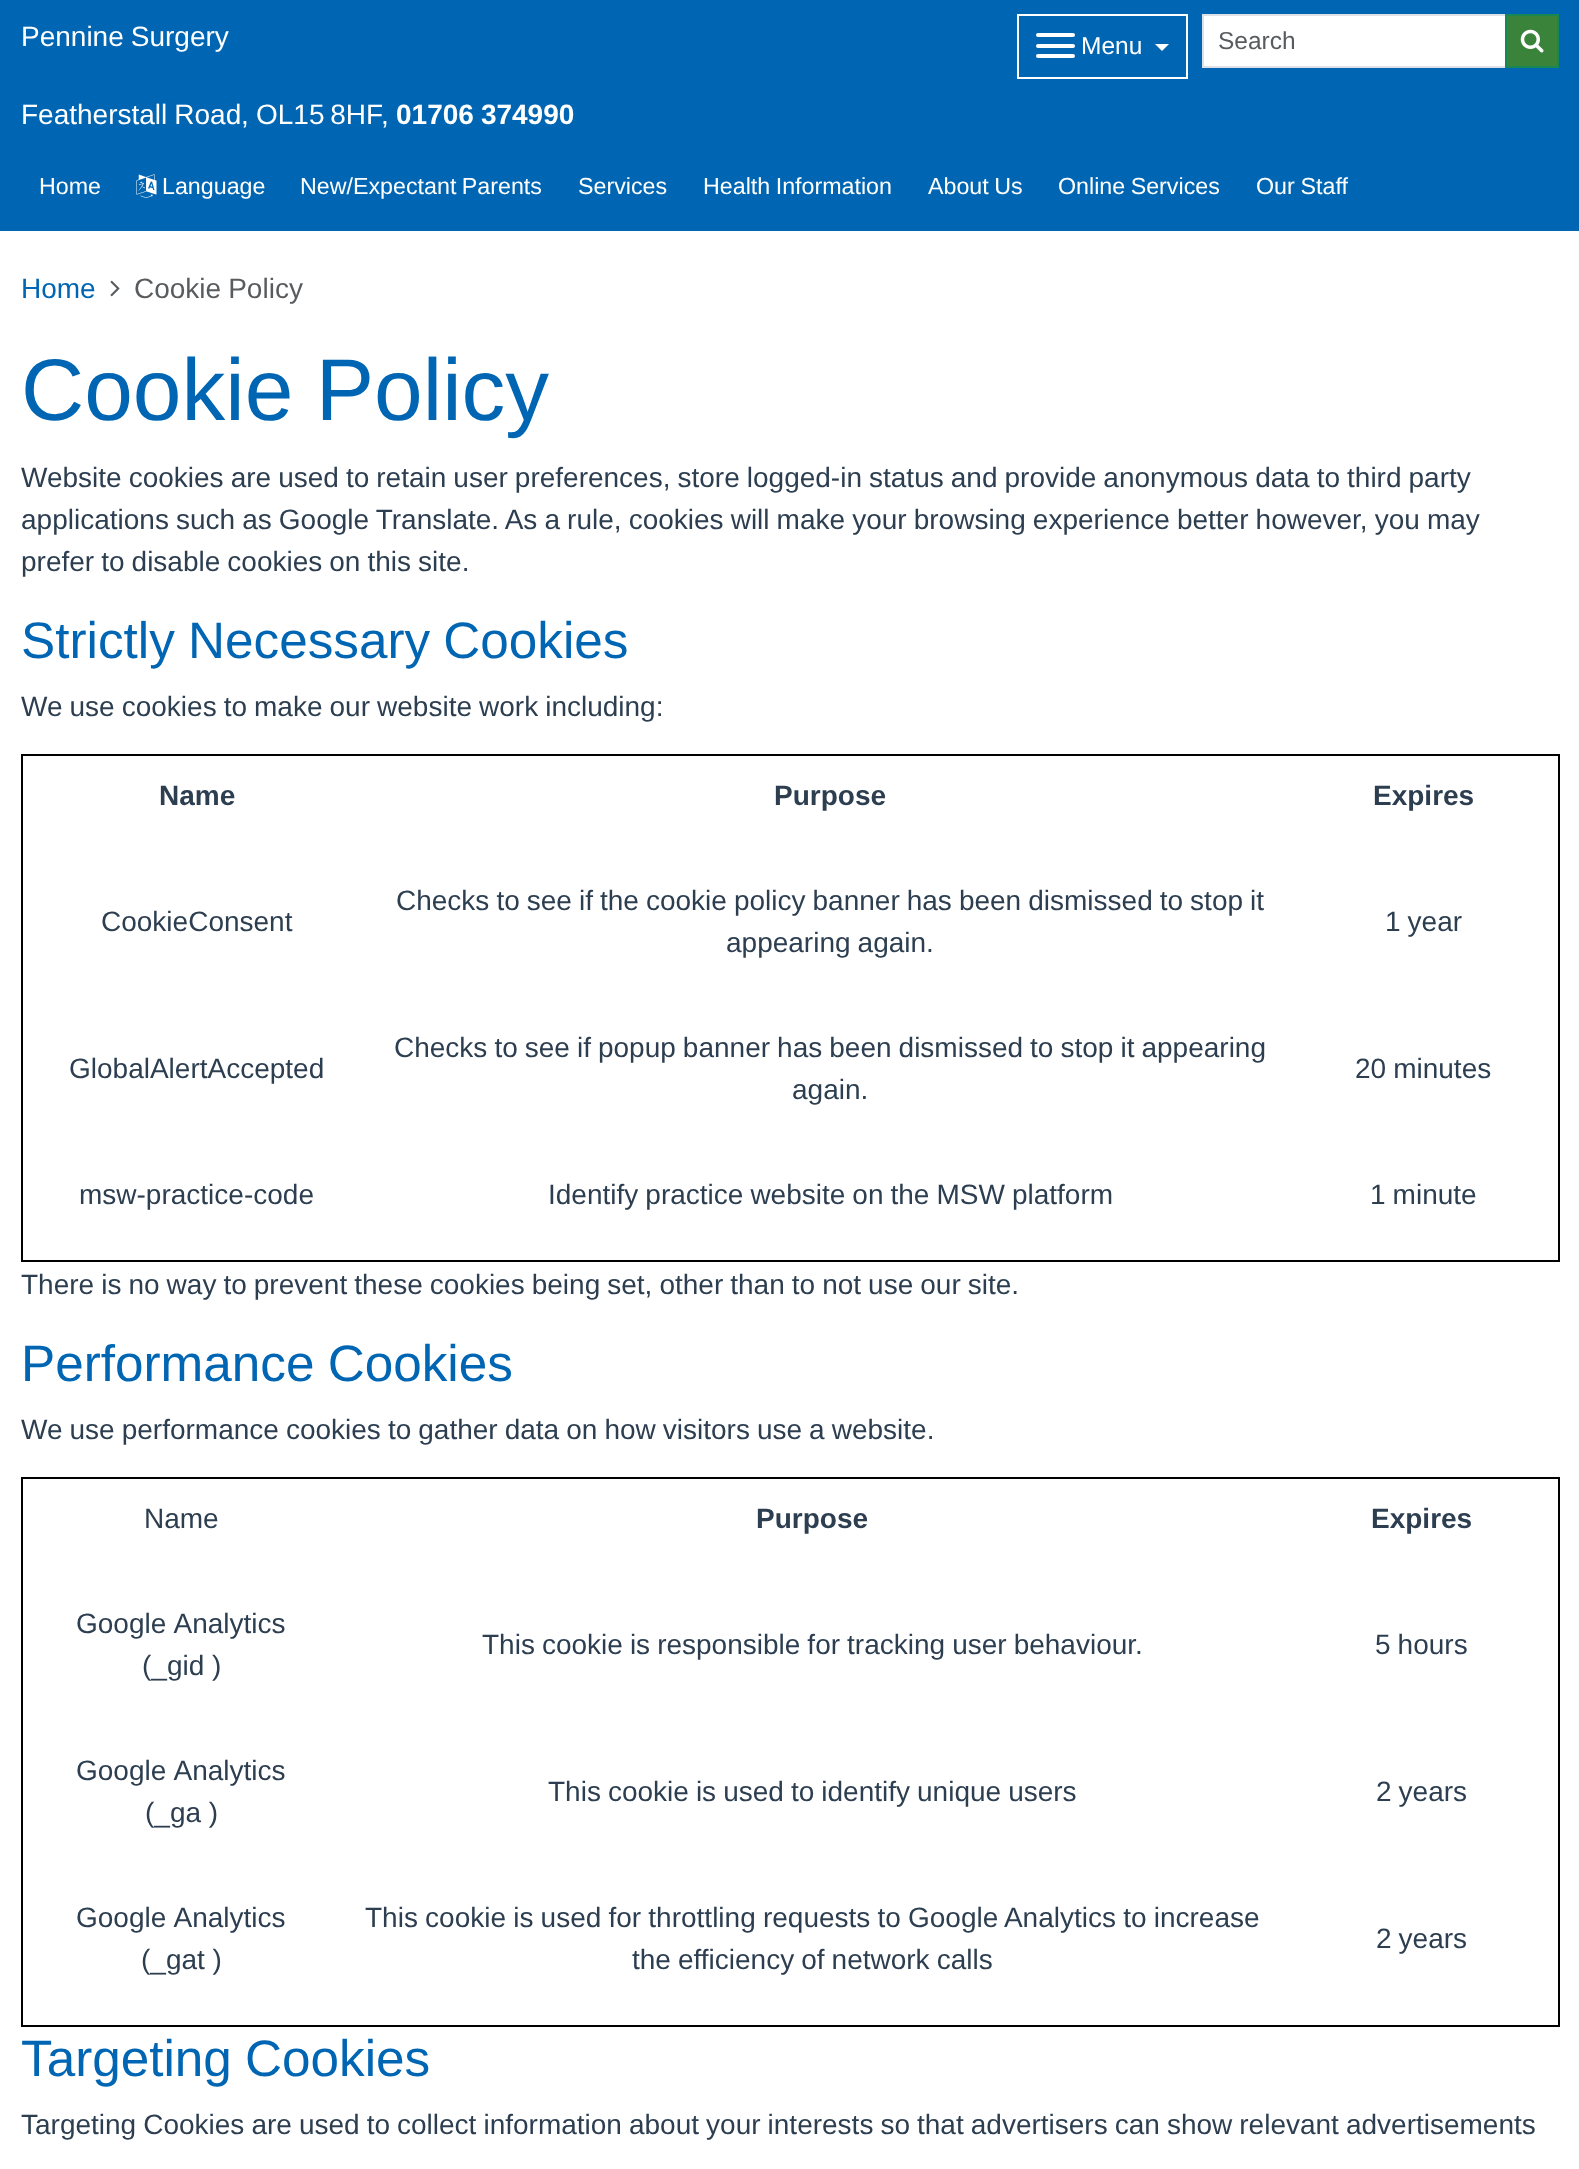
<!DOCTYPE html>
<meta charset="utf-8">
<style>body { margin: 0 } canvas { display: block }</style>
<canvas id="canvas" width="1579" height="2169"></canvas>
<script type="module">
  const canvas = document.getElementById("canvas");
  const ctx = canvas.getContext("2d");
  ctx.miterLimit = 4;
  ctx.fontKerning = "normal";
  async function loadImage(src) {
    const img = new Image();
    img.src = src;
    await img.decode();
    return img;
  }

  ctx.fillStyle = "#ffffff";
  ctx.fillRect(0, 0, 1579, 2169);
  ctx.fillStyle = "#0066b3";
  ctx.fillRect(0, 0, 1579, 231);
  ctx.wordSpacing = "-0.75px";
  ctx.font = "28px Liberation Sans";
  ctx.fillStyle = "#ffffff";
  ctx.fillText("Pennine Surgery", 21, 46);
  ctx.strokeStyle = "#ffffff";
  ctx.lineWidth = 2;
  ctx.strokeRect(1018, 15, 169, 63);
  ctx.beginPath();
  ctx.roundRect(1036, 33, 39, 4, 2);
  ctx.fill();
  ctx.beginPath();
  ctx.roundRect(1036, 44, 39, 4, 2);
  ctx.fill();
  ctx.beginPath();
  ctx.roundRect(1036, 54, 39, 4, 2);
  ctx.fill();
  ctx.wordSpacing = "0px";
  ctx.font = "24.5px Liberation Sans";
  ctx.fillText("Menu", 1081, 54);
  ctx.beginPath();
  ctx.moveTo(1155, 44);
  ctx.lineTo(1169, 44);
  ctx.lineTo(1162, 51);
  ctx.closePath();
  ctx.fill();
  ctx.beginPath();
  ctx.rect(1203, 15, 303, 52);
  ctx.fill();
  ctx.strokeStyle = "#dee2e6";
  ctx.stroke();
  ctx.fillStyle = "#595c5f";
  ctx.fillText("Search", 1218, 49);
  ctx.fillStyle = "#3a833a";
  ctx.beginPath();
  ctx.rect(1506, 15, 52, 52);
  ctx.fill();
  ctx.strokeStyle = "#198754";
  ctx.stroke();
  ctx.drawImage(await loadImage("img1.png"), 1520, 29, 24, 24);
  ctx.wordSpacing = "-0.75px";
  ctx.font = "28px Liberation Sans";
  ctx.fillStyle = "#ffffff";
  ctx.fillText("Featherstall Road", 21, 124);
  ctx.wordSpacing = "0px";
  ctx.fillText(",", 241, 124);
  ctx.wordSpacing = "-2px";
  ctx.fillText("OL15 8HF", 256, 124);
  ctx.wordSpacing = "0px";
  ctx.fillText(",", 381, 124);
  ctx.wordSpacing = "-0.75px";
  ctx.font = "bold 28px Liberation Sans";
  ctx.fillText("01706 374990", 396, 124);
  ctx.wordSpacing = "0px";
  ctx.font = "23.25px Liberation Sans";
  ctx.fillText("Home", 39, 194);
  ctx.drawImage(await loadImage("img2.png"), 136, 174, 21, 24);
  ctx.fillText("Language", 162, 194);
  ctx.wordSpacing = "-1px";
  ctx.fillText("New/Expectant Parents", 300, 194);
  ctx.wordSpacing = "0px";
  ctx.fillText("Services", 578, 194);
  ctx.wordSpacing = "-1px";
  ctx.fillText("Health Information", 703, 194);
  ctx.fillText("About Us", 928, 194);
  ctx.fillText("Online Services", 1058, 194);
  ctx.wordSpacing = "-0.7px";
  ctx.fillText("Our Staff", 1256, 194);
  ctx.wordSpacing = "0px";
  ctx.font = "28px Liberation Sans";
  ctx.fillStyle = "#0066b3";
  ctx.fillText("Home", 21, 298);
  ctx.drawImage(await loadImage("img3.png"), 110, 280, 10, 17);
  ctx.wordSpacing = "-0.75px";
  ctx.fillStyle = "#595c5f";
  ctx.fillText("Cookie Policy", 134, 298);
  ctx.wordSpacing = "-2px";
  ctx.font = "87.5px Liberation Sans";
  ctx.fillStyle = "#0066b3";
  ctx.fillText("Cookie Policy", 21, 420);
  ctx.wordSpacing = "-0.75px";
  ctx.font = "28px Liberation Sans";
  ctx.fillStyle = "#2c3e50";
  ctx.fillText("Website cookies are used to retain user preferences, store logged-in status and provide anonymous data to third party", 21, 487);
  ctx.wordSpacing = "-0.7px";
  ctx.fillText("applications such as Google Translate. As a rule, cookies will make your browsing experience better however, you may", 21, 529);
  ctx.wordSpacing = "-0.75px";
  ctx.fillText("prefer to disable cookies on this site.", 21, 571);
  ctx.wordSpacing = "-1px";
  ctx.font = "51.25px Liberation Sans";
  ctx.fillStyle = "#0066b3";
  ctx.fillText("Strictly Necessary Cookies", 21, 658);
  ctx.wordSpacing = "-0.75px";
  ctx.font = "28px Liberation Sans";
  ctx.fillStyle = "#2c3e50";
  ctx.fillText("We use cookies to make our website work including:", 21, 716);
  ctx.fillStyle = "#000000";
  ctx.fillRect(21, 754, 1538, 2);
  ctx.fillRect(1558, 754, 2, 508);
  ctx.fillRect(21, 1260, 1538, 2);
  ctx.fillRect(21, 754, 2, 508);
  ctx.wordSpacing = "0px";
  ctx.font = "bold 28px Liberation Sans";
  ctx.fillStyle = "#2c3e50";
  ctx.fillText("Name", 159, 805);
  ctx.fillText("Purpose", 774, 805);
  ctx.fillText("Expires", 1373, 805);
  ctx.font = "28px Liberation Sans";
  ctx.fillText("CookieConsent", 101, 931);
  ctx.wordSpacing = "-0.75px";
  ctx.fillText("Checks to see if the cookie policy banner has been dismissed to stop it", 396, 910);
  ctx.fillText("appearing again.", 726, 952);
  ctx.fillText("1 year", 1385, 931);
  ctx.wordSpacing = "0px";
  ctx.fillText("GlobalAlertAccepted", 69, 1078);
  ctx.wordSpacing = "-0.75px";
  ctx.fillText("Checks to see if popup banner has been dismissed to stop it appearing", 394, 1057);
  ctx.wordSpacing = "0px";
  ctx.fillText("again.", 792, 1099);
  ctx.wordSpacing = "-0.75px";
  ctx.fillText("20 minutes", 1355, 1078);
  ctx.wordSpacing = "0px";
  ctx.fillText("msw-practice-code", 79, 1204);
  ctx.wordSpacing = "-0.75px";
  ctx.fillText("Identify practice website on the MSW platform", 548, 1204);
  ctx.fillText("1 minute", 1370, 1204);
  ctx.fillText("There is no way to prevent these cookies being set, other than to not use our site.", 21, 1294);
  ctx.wordSpacing = "-1px";
  ctx.font = "51.25px Liberation Sans";
  ctx.fillStyle = "#0066b3";
  ctx.fillText("Performance Cookies", 21, 1381);
  ctx.wordSpacing = "-0.75px";
  ctx.font = "28px Liberation Sans";
  ctx.fillStyle = "#2c3e50";
  ctx.fillText("We use performance cookies to gather data on how visitors use a website.", 21, 1439);
  ctx.fillStyle = "#000000";
  ctx.fillRect(21, 1477, 1538, 2);
  ctx.fillRect(1558, 1477, 2, 550);
  ctx.fillRect(21, 2025, 1538, 2);
  ctx.fillRect(21, 1477, 2, 550);
  ctx.wordSpacing = "0px";
  ctx.fillStyle = "#2c3e50";
  ctx.fillText("Name", 144, 1528);
  ctx.font = "bold 28px Liberation Sans";
  ctx.fillText("Purpose", 756, 1528);
  ctx.fillText("Expires", 1371, 1528);
  ctx.wordSpacing = "1px";
  ctx.font = "28px Liberation Sans";
  ctx.fillText("Google Analytics", 76, 1633);
  ctx.wordSpacing = "0px";
  ctx.fillText("(_gid )", 142, 1675);
  ctx.wordSpacing = "-0.75px";
  ctx.fillText("This cookie is responsible for tracking user behaviour.", 482, 1654);
  ctx.fillText("5 hours", 1375, 1654);
  ctx.wordSpacing = "1px";
  ctx.fillText("Google Analytics", 76, 1780);
  ctx.wordSpacing = "0px";
  ctx.fillText("(_ga )", 145, 1822);
  ctx.wordSpacing = "-0.75px";
  ctx.fillText("This cookie is used to identify unique users", 548, 1801);
  ctx.fillText("2 years", 1376, 1801);
  ctx.wordSpacing = "1px";
  ctx.fillText("Google Analytics", 76, 1927);
  ctx.wordSpacing = "0px";
  ctx.fillText("(_gat )", 141, 1969);
  ctx.wordSpacing = "-0.6px";
  ctx.fillText("This cookie is used for throttling requests to Google Analytics to increase", 365, 1927);
  ctx.wordSpacing = "-0.75px";
  ctx.fillText("the efficiency of network calls", 632, 1969);
  ctx.fillText("2 years", 1376, 1948);
  ctx.wordSpacing = "-1px";
  ctx.font = "51.25px Liberation Sans";
  ctx.fillStyle = "#0066b3";
  ctx.fillText("Targeting Cookies", 21, 2076);
  ctx.wordSpacing = "-0.75px";
  ctx.font = "28px Liberation Sans";
  ctx.fillStyle = "#2c3e50";
  ctx.fillText("Targeting Cookies are used to collect information about your interests so that advertisers can show relevant advertisements", 21, 2134);
</script>
